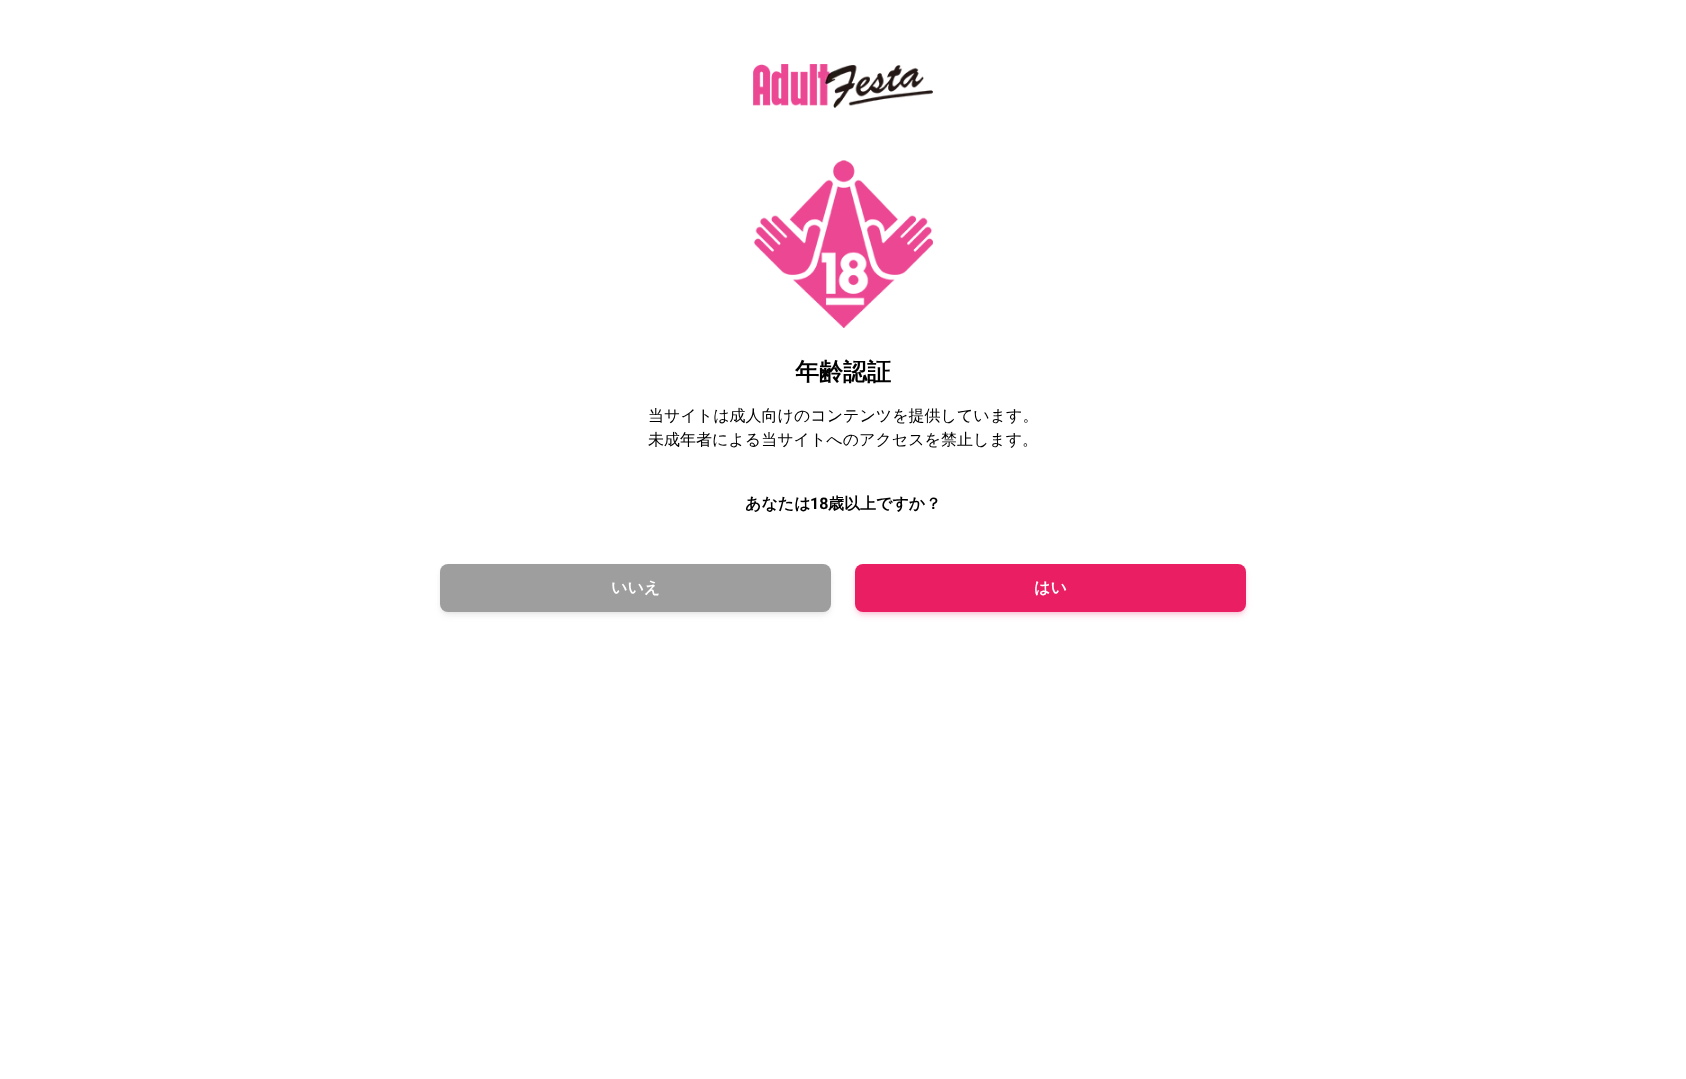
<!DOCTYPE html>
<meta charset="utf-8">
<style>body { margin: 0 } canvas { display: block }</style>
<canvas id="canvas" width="1686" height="1079"></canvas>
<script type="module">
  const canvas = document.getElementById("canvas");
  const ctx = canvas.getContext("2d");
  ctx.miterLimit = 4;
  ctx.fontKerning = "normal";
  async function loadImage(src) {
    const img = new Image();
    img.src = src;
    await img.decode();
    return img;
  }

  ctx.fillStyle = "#ffffff";
  ctx.fillRect(0, 0, 1686, 1079);
  ctx.drawImage(await loadImage("img1.png"), 753, 64, 180, 44);
  ctx.drawImage(await loadImage("img2.png"), 754, 160, 179, 168);
  ctx.font = "bold 24px WenQuanYi Zen Hei";
  ctx.fillStyle = "#000000";
  ctx.fillText("年齢認証", 795, 380);
  ctx.font = "500 16px WenQuanYi Zen Hei";
  ctx.fillText("当サイトは成人向けのコンテンツを提供しています。", 648, 421);
  ctx.fillText("未成年者による当サイトへのアクセスを禁止します。", 648, 445);
  ctx.font = "bold 16px WenQuanYi Zen Hei";
  ctx.fillText("あなたは", 745, 509);
  ctx.font = "bold 16px Roboto";
  ctx.fillText("18", 810, 509);
  ctx.font = "bold 16px WenQuanYi Zen Hei";
  ctx.fillText("歳以上ですか？", 828, 509);
  ctx.fillStyle = "rgba(158, 158, 158, 0.2)";
  ctx.filter = "blur(2px)";
  ctx.beginPath();
  ctx.roundRect(442, 568, 387, 44, 6);
  ctx.fill();
  ctx.filter = "none";
  ctx.filter = "blur(3px)";
  ctx.beginPath();
  ctx.roundRect(441, 569, 389, 46, 7);
  ctx.fill();
  ctx.filter = "none";
  ctx.fillStyle = "#9e9e9e";
  ctx.beginPath();
  ctx.roundRect(440, 564, 391, 48, 8);
  ctx.fill();
  ctx.fillStyle = "#ffffff";
  ctx.fillText("いいえ", 611, 593);
  ctx.fillStyle = "rgba(233, 30, 99, 0.2)";
  ctx.filter = "blur(2px)";
  ctx.beginPath();
  ctx.roundRect(857, 568, 387, 44, 6);
  ctx.fill();
  ctx.filter = "none";
  ctx.filter = "blur(3px)";
  ctx.beginPath();
  ctx.roundRect(856, 569, 389, 46, 7);
  ctx.fill();
  ctx.filter = "none";
  ctx.fillStyle = "#e91e63";
  ctx.beginPath();
  ctx.roundRect(855, 564, 391, 48, 8);
  ctx.fill();
  ctx.fillStyle = "#ffffff";
  ctx.fillText("はい", 1034, 593);
</script>
